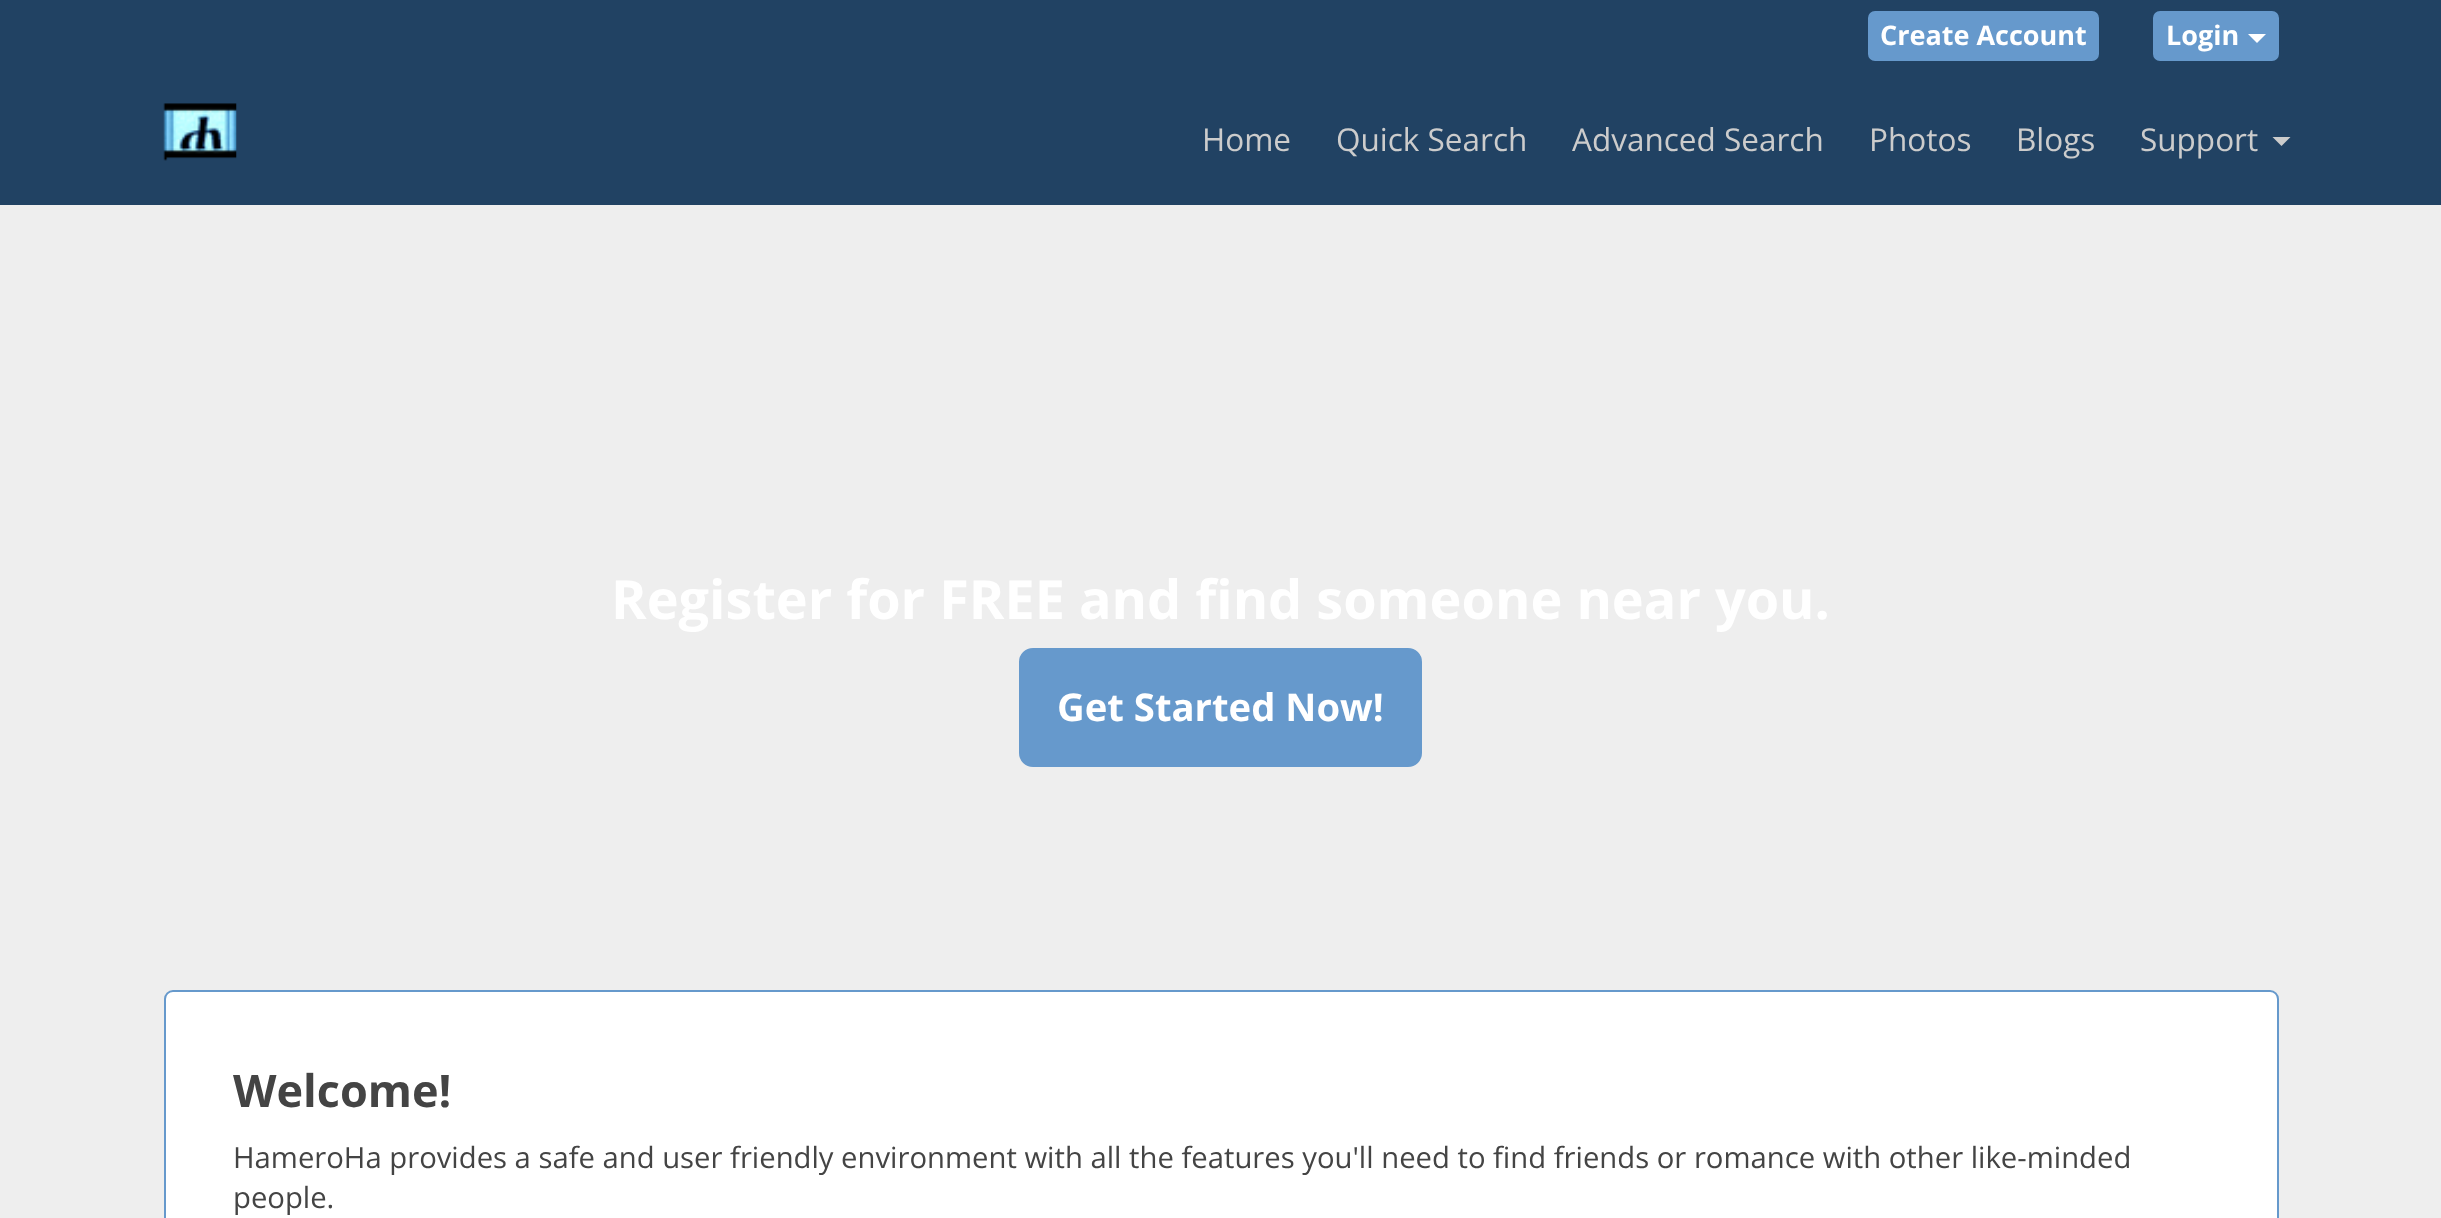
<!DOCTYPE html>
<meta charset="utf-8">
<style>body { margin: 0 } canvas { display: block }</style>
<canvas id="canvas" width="2441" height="1218"></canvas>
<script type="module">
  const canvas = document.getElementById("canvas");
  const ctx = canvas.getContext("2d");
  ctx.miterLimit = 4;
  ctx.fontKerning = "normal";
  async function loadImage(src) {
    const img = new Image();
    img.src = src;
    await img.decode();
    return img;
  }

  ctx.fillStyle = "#eeeeee";
  ctx.fillRect(0, 0, 2441, 1218);
  ctx.fillStyle = "#214263";
  ctx.fillRect(0, 0, 2441, 205);
  ctx.fillStyle = "#6699cc";
  ctx.beginPath();
  ctx.roundRect(1869, 12, 229, 48, 6);
  ctx.fill();
  ctx.strokeStyle = "#6699cc";
  ctx.lineWidth = 2;
  ctx.stroke();
  ctx.font = "bold 27px Open Sans";
  ctx.fillStyle = "#ffffff";
  ctx.fillText("Create Account", 1880, 45);
  ctx.fillStyle = "#6699cc";
  ctx.beginPath();
  ctx.roundRect(2154, 12, 124, 48, 6);
  ctx.fill();
  ctx.stroke();
  ctx.fillStyle = "#ffffff";
  ctx.fillText("Login", 2166, 45);
  ctx.beginPath();
  ctx.moveTo(2248, 34);
  ctx.lineTo(2266, 34);
  ctx.lineTo(2257, 43);
  ctx.closePath();
  ctx.fill();
  ctx.drawImage(await loadImage("img1.png"), 163, 103, 74, 58);
  ctx.font = "31.5px Open Sans";
  ctx.fillStyle = "#cccccc";
  ctx.fillText("Home", 1202, 151);
  ctx.fillText("Quick Search", 1336, 151);
  ctx.fillText("Advanced Search", 1572, 151);
  ctx.fillText("Photos", 1869, 151);
  ctx.fillText("Blogs", 2016, 151);
  ctx.fillText("Support", 2140, 151);
  ctx.beginPath();
  ctx.moveTo(2272.5, 137);
  ctx.lineTo(2290.5, 137);
  ctx.lineTo(2281.5, 146);
  ctx.closePath();
  ctx.fill();
  ctx.font = "bold 54px Open Sans";
  ctx.fillStyle = "#ffffff";
  ctx.fillText("Register for FREE and find someone near you.", 611, 619);
  ctx.fillStyle = "#6699cc";
  ctx.beginPath();
  ctx.roundRect(1020, 649, 401, 117, 13);
  ctx.fill();
  ctx.stroke();
  ctx.font = "bold 38.25px Open Sans";
  ctx.fillStyle = "#ffffff";
  ctx.fillText("Get Started Now!", 1057, 721);
  ctx.beginPath();
  ctx.roundRect(165, 991, 2113, 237, 8);
  ctx.fill();
  ctx.stroke();
  ctx.font = "bold 45px Open Sans";
  ctx.fillStyle = "#444444";
  ctx.fillText("Welcome!", 233, 1107);
  ctx.font = "29.25px Open Sans";
  ctx.fillText("HameroHa provides a safe and user friendly environment with all the features you'll need to find friends or romance with other like-minded", 233, 1168);
  ctx.fillText("people.", 233, 1208);
</script>
